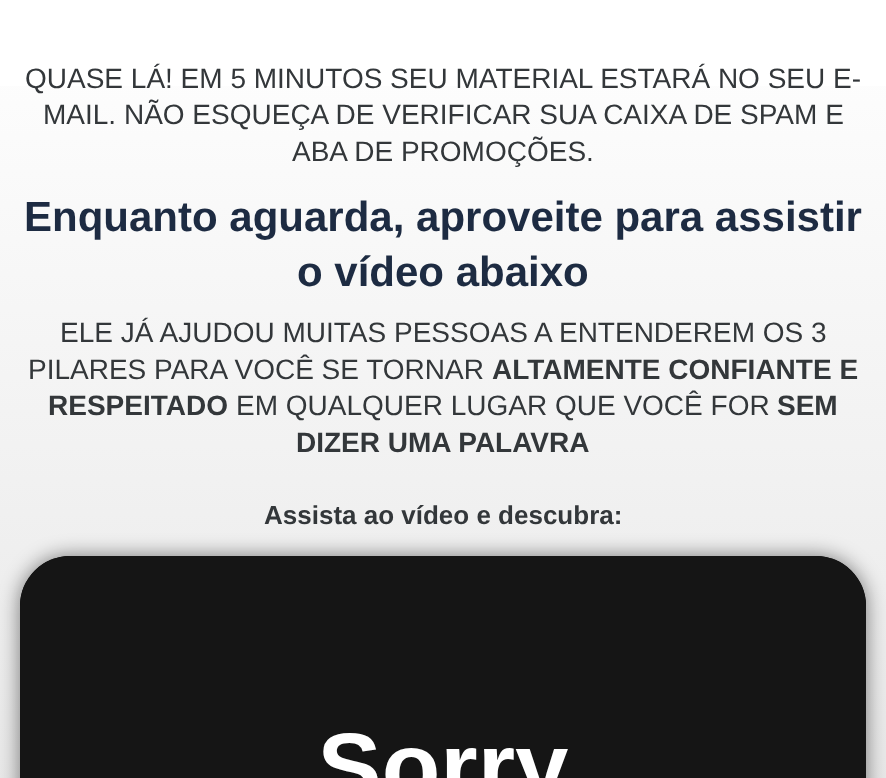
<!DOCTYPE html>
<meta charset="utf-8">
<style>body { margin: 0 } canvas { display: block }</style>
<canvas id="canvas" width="886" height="778"></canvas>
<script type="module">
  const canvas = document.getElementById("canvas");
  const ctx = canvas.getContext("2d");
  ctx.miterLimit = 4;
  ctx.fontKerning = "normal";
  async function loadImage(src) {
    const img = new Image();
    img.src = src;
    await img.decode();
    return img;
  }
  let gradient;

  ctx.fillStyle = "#ffffff";
  ctx.fillRect(0, 0, 886, 778);
  gradient = ctx.createLinearGradient(443, 0, 443, 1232);
  gradient.addColorStop(0, "#ffffff");
  gradient.addColorStop(1, "#dbdbdb");
  ctx.fillStyle = gradient;
  ctx.fillRect(0, 86, 886, 692);
  ctx.font = "28px Liberation Sans";
  ctx.fillStyle = "#33373a";
  ctx.fillText("QUASE LÁ! EM 5 MINUTOS SEU MATERIAL ESTARÁ NO SEU E-", 25, 88);
  ctx.fillText("MAIL. NÃO ESQUEÇA DE VERIFICAR SUA CAIXA DE SPAM E", 43, 124);
  ctx.fillText("ABA DE PROMOÇÕES.", 292, 161);
  ctx.font = "bold 42px Liberation Sans";
  ctx.fillStyle = "#1d2b42";
  ctx.fillText("Enquanto aguarda, aproveite para assistir", 24, 231);
  ctx.fillText("o vídeo abaixo", 297, 286);
  ctx.font = "28px Liberation Sans";
  ctx.fillStyle = "#33373a";
  ctx.fillText("ELE JÁ AJUDOU MUITAS PESSOAS A ENTENDEREM OS 3", 60, 342);
  ctx.fillText("PILARES PARA VOCÊ SE TORNAR", 28, 379);
  ctx.font = "bold 28px Liberation Sans";
  ctx.fillText("ALTAMENTE CONFIANTE E", 492, 379);
  ctx.fillText("RESPEITADO", 48, 415);
  ctx.font = "28px Liberation Sans";
  ctx.fillText("EM QUALQUER LUGAR QUE VOCÊ FOR", 236, 415);
  ctx.font = "bold 28px Liberation Sans";
  ctx.fillText("SEM", 777, 415);
  ctx.fillText("DIZER UMA PALAVRA", 296, 452);
  ctx.font = "bold 26px Liberation Sans";
  ctx.fillText("Assista ao vídeo e descubra:", 264, 524);
  ctx.fillStyle = "rgba(0, 0, 0, 0.5)";
  ctx.filter = "blur(10px)";
  ctx.beginPath();
  ctx.roundRect(20, 556, 846, 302, 50);
  ctx.fill();
  ctx.filter = "none";
  ctx.fillStyle = "#000000";
  ctx.beginPath();
  ctx.roundRect(20, 556, 846, 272, 50);
  ctx.fill();
  ctx.drawImage(await loadImage("img1.png"), 20, 556, 846, 222);
</script>
